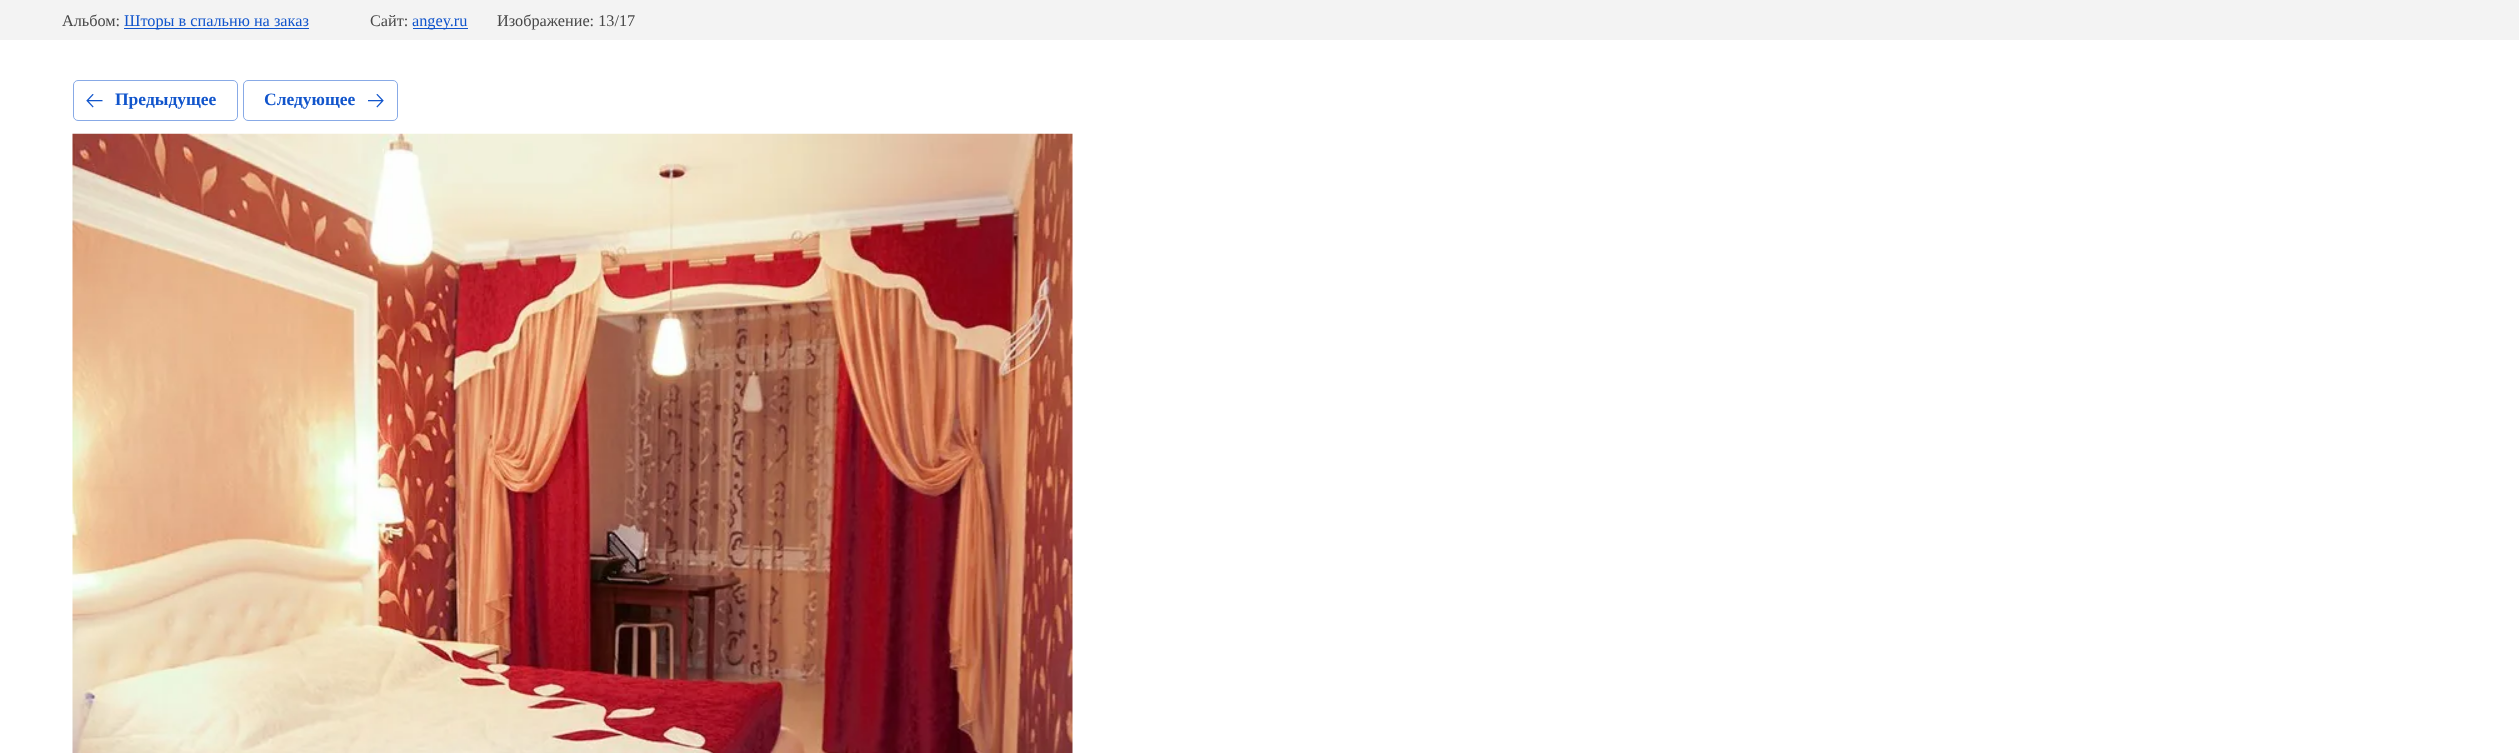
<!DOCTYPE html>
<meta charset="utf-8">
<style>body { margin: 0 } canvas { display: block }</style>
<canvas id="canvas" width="2519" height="753"></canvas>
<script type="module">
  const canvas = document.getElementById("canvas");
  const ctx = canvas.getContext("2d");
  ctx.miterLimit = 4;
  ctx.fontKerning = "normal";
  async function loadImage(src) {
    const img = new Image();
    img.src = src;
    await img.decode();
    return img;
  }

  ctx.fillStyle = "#ffffff";
  ctx.fillRect(0, 0, 2519, 753);
  ctx.fillStyle = "#f3f3f3";
  ctx.fillRect(0, 0, 2519, 40);
  ctx.font = "16.25px Liberation Serif";
  ctx.fillStyle = "#484848";
  ctx.fillText("Альбом:", 62, 26);
  ctx.fillStyle = "#1155cc";
  ctx.fillRect(124, 28, 185, 1);
  ctx.fillText("Шторы в спальню на заказ", 124, 26);
  ctx.fillStyle = "#484848";
  ctx.fillText("Сайт:", 370, 26);
  ctx.fillStyle = "#1155cc";
  ctx.fillRect(413, 28, 55, 1);
  ctx.fillText("angey.ru", 412, 26);
  ctx.fillStyle = "#484848";
  ctx.fillText("Изображение: 13/17", 497, 26);
  ctx.beginPath();
  ctx.roundRect(73.5, 80.5, 164, 40, 4.5);
  ctx.strokeStyle = "#88aae6";
  ctx.stroke();
  ctx.drawImage(await loadImage("img1.png"), 86, 94, 17, 14);
  ctx.font = "bold 17.5px Liberation Serif";
  ctx.fillStyle = "#1155cc";
  ctx.fillText("Предыдущее", 115, 105);
  ctx.beginPath();
  ctx.roundRect(243.5, 80.5, 154, 40, 4.5);
  ctx.stroke();
  ctx.fillText("Следующее", 264, 105);
  ctx.drawImage(await loadImage("img2.png"), 368, 94, 16, 14);
  ctx.drawImage(await loadImage("img3.png"), 72, 133, 1001, 620);
</script>
